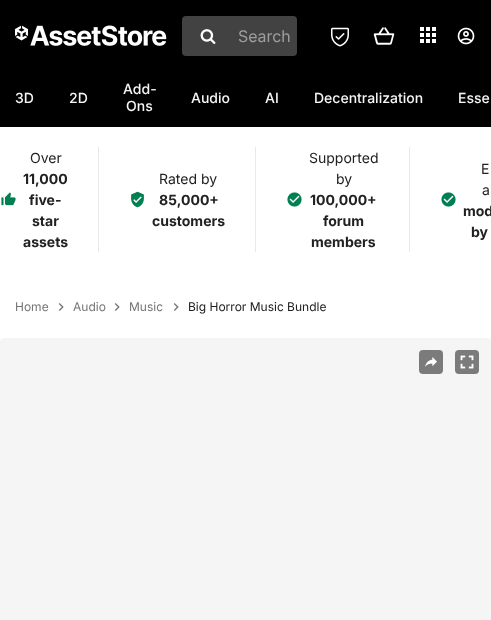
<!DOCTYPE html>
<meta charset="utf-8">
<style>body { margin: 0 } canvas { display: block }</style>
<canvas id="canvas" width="491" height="620"></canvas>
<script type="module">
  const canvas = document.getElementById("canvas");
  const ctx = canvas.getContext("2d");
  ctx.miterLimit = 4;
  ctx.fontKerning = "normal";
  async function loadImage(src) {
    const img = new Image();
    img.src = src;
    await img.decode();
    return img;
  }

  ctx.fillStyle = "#ffffff";
  ctx.fillRect(0, 0, 491, 620);
  ctx.fillStyle = "#000000";
  ctx.fillRect(0, 0, 491, 127);
  ctx.drawImage(await loadImage("img1.png"), 15, 25, 152, 21);
  ctx.fillStyle = "#424242";
  ctx.beginPath();
  ctx.roundRect(182, 16, 115, 40, 4);
  ctx.fill();
  ctx.drawImage(await loadImage("img2.png"), 200, 29, 16, 15);
  ctx.font = "16px 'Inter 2'";
  ctx.fillStyle = "#9e9e9e";
  ctx.fillText("Search", 238, 42);
  ctx.drawImage(await loadImage("img3.png"), 331, 27, 18, 20);
  ctx.drawImage(await loadImage("img4.png"), 373, 27, 22, 18);
  ctx.drawImage(await loadImage("img5.png"), 420, 27, 16, 16);
  ctx.drawImage(await loadImage("img6.png"), 457, 27, 18, 18);
  ctx.font = "500 14px Inter";
  ctx.fillStyle = "#f5f5f5";
  ctx.fillText("3D", 15, 103);
  ctx.fillText("2D", 69, 103);
  ctx.fillText("Add-", 123, 94);
  ctx.fillText("Ons", 126, 111);
  ctx.fillText("Audio", 191, 103);
  ctx.fillText("AI", 265, 103);
  ctx.fillText("Decentralization", 314, 103);
  ctx.fillText("Esse", 458, 103);
  ctx.drawImage(await loadImage("img7.png"), 1, 192, 15, 14);
  ctx.font = "14px Inter";
  ctx.fillStyle = "#212121";
  ctx.fillText("Over", 30, 163);
  ctx.font = "bold 14px Inter";
  ctx.fillText("11,000", 23, 184);
  ctx.fillText("five-", 29, 205);
  ctx.fillText("star", 32, 226);
  ctx.fillText("assets", 23, 247);
  ctx.fillStyle = "#e9e9e9";
  ctx.fillRect(255, 147, 1, 105);
  ctx.fillRect(98, 147, 1, 105);
  ctx.drawImage(await loadImage("img8.png"), 131, 191, 13, 17);
  ctx.font = "14px Inter";
  ctx.fillStyle = "#212121";
  ctx.fillText("Rated by", 159, 184);
  ctx.font = "bold 14px Inter";
  ctx.fillText("85,000+", 159, 205);
  ctx.fillText("customers", 152, 226);
  ctx.fillStyle = "#e9e9e9";
  ctx.fillRect(409, 147, 1, 105);
  ctx.drawImage(await loadImage("img9.png"), 287, 192, 15, 15);
  ctx.font = "14px Inter";
  ctx.fillStyle = "#212121";
  ctx.fillText("Supported", 309, 163);
  ctx.fillText("by", 336, 184);
  ctx.font = "bold 14px Inter";
  ctx.fillText("100,000+", 310, 205);
  ctx.fillText("forum", 323, 226);
  ctx.fillText("members", 311, 247);
  ctx.drawImage(await loadImage("img9.png"), 441, 192, 15, 15);
  ctx.font = "14px Inter";
  ctx.fillText("E", 481, 174);
  ctx.fillText("a", 482, 195);
  ctx.font = "bold 14px Inter";
  ctx.fillText("mod", 463, 216);
  ctx.fillText("by", 471, 237);
  ctx.font = "12px Inter";
  ctx.fillStyle = "#757575";
  ctx.fillText("Home", 15, 311);
  ctx.drawImage(await loadImage("img10.png"), 58, 303, 6, 8);
  ctx.fillText("Audio", 73, 311);
  ctx.drawImage(await loadImage("img10.png"), 114, 303, 6, 8);
  ctx.fillText("Music", 129, 311);
  ctx.drawImage(await loadImage("img10.png"), 173, 303, 6, 8);
  ctx.fillStyle = "#212121";
  ctx.fillText("Big Horror Music Bundle", 188, 311);
  ctx.fillStyle = "#f5f5f5";
  ctx.beginPath();
  ctx.roundRect(0, 338, 491, 282, [4, 4, 0, 0]);
  ctx.fill();
  ctx.fillStyle = "#7b7b7b";
  ctx.beginPath();
  ctx.roundRect(419, 350, 24, 24, 4);
  ctx.fill();
  ctx.drawImage(await loadImage("img11.png"), 425, 357, 12, 10);
  ctx.beginPath();
  ctx.roundRect(455, 350, 24, 24, 4);
  ctx.fill();
  ctx.drawImage(await loadImage("img12.png"), 460, 355, 14, 14);
</script>
